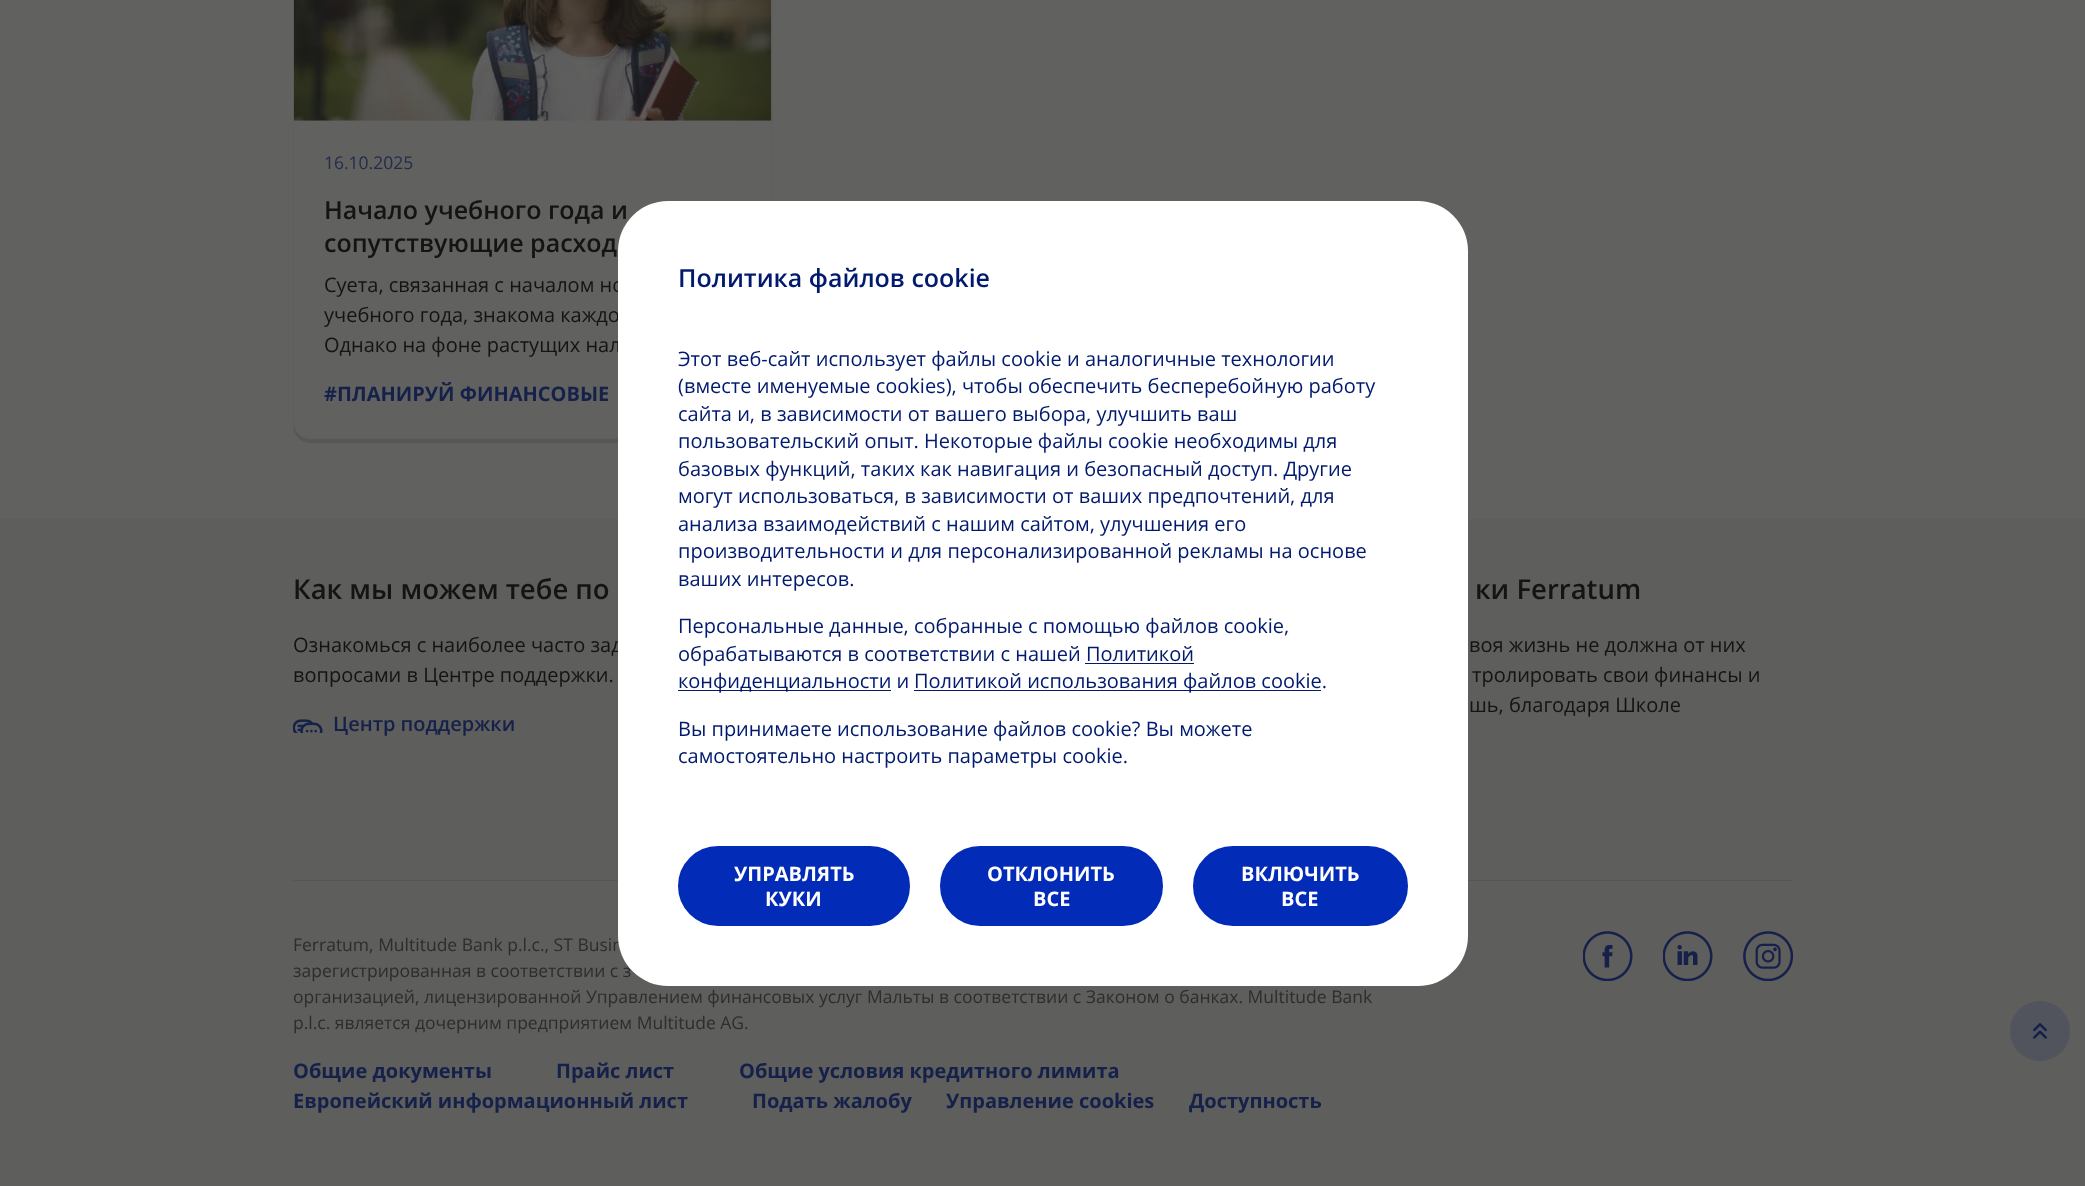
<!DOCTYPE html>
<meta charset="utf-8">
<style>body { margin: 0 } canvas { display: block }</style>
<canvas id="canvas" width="2085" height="1186"></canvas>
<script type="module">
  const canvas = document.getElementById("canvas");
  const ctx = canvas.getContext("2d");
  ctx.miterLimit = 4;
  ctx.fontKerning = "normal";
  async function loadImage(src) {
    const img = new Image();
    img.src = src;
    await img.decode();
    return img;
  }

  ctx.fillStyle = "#61615f";
  ctx.fillRect(0, 0, 2085, 1186);
  ctx.fillStyle = "#575755";
  ctx.beginPath();
  ctx.moveTo(293, 425);
  ctx.bezierCurveTo(293, 435, 301, 443, 311, 443);
  ctx.lineTo(755, 443);
  ctx.bezierCurveTo(765, 443, 773, 435, 773, 425);
  ctx.lineTo(773, -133);
  ctx.lineTo(772, -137);
  ctx.lineTo(772, 421);
  ctx.bezierCurveTo(772, 431, 765, 439, 755, 439);
  ctx.lineTo(310, 439);
  ctx.bezierCurveTo(302, 439, 295, 433, 293, 425);
  ctx.closePath();
  ctx.fill();
  ctx.fillStyle = "#61615f";
  ctx.beginPath();
  ctx.roundRect(293.5, -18.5, 479, 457, 17.5);
  ctx.fill();
  ctx.strokeStyle = "#5e5e5c";
  ctx.stroke();
  ctx.drawImage(await loadImage("img1.png"), 293, 0, 479, 121);
  ctx.font = "17.5px Open Sans";
  ctx.fillStyle = "#222d4e";
  ctx.fillText("16.10.2025", 324, 169);
  ctx.font = "600 25px Open Sans";
  ctx.fillStyle = "#141413";
  ctx.fillText("Начало учебного года и", 324, 219);
  ctx.fillText("сопутствующие расход", 324, 252);
  ctx.font = "20px Open Sans";
  ctx.fillText("Суета, связанная с началом но", 324, 292);
  ctx.fillText("учебного года, знакома каждо", 324, 322);
  ctx.fillText("Однако на фоне растущих нал", 324, 352);
  ctx.font = "bold 20px Open Sans";
  ctx.fillStyle = "#15214a";
  ctx.fillText("#ПЛАНИРУЙ ФИНАНСОВЫЕ", 324, 401);
  ctx.fillStyle = "#5e5e5c";
  ctx.fillRect(0, 519, 2085, 667);
  ctx.fillStyle = "#545659";
  ctx.fillRect(293, 880, 1500, 1);
  ctx.font = "600 27.5px Open Sans";
  ctx.fillStyle = "#141413";
  ctx.fillText("Как мы можем тебе по", 293, 599);
  ctx.font = "20px Open Sans";
  ctx.fillText("Ознакомься с наиболее часто зад", 293, 652);
  ctx.fillText("вопросами в Центре поддержки.", 293, 682);
  ctx.drawImage(await loadImage("img2.png"), 293, 719, 30, 14);
  ctx.font = "600 20px Open Sans";
  ctx.fillStyle = "#15214a";
  ctx.fillText("Центр поддержки", 333, 731);
  ctx.font = "600 27.5px Open Sans";
  ctx.fillStyle = "#141413";
  ctx.fillText("ки Ferratum", 1475, 599);
  ctx.font = "20px Open Sans";
  ctx.fillText("воя жизнь не должна от них", 1469, 652);
  ctx.fillText("тролировать свои финансы и", 1472, 682);
  ctx.fillText("шь, благодаря Школе", 1469, 712);
  ctx.font = "17.5px Open Sans";
  ctx.fillStyle = "#2d2d2c";
  ctx.fillText("Ferratum, Multitude Bank p.l.c., ST Busin", 293, 951);
  ctx.fillText("зарегистрированная в соответствии с з", 293, 977);
  ctx.fillText("организацией, лицензированной Управлением финансовых услуг Мальты в соответствии с Законом о банках. Multitude Bank", 293, 1003);
  ctx.fillText("p.l.c. является дочерним предприятием Multitude AG.", 293, 1029);
  ctx.font = "bold 20px Open Sans";
  ctx.fillStyle = "#15214a";
  ctx.fillText("Общие документы", 293, 1078);
  ctx.fillText("Прайс лист", 556, 1078);
  ctx.fillText("Общие условия кредитного лимита", 739, 1078);
  ctx.fillText("Европейский информационный лист", 293, 1108);
  ctx.fillText("Подать жалобу", 752, 1108);
  ctx.fillText("Управление cookies", 946, 1108);
  ctx.fillText("Доступность", 1189, 1108);
  ctx.drawImage(await loadImage("img3.png"), 1583, 931, 50, 50);
  ctx.drawImage(await loadImage("img4.png"), 1663, 931, 50, 50);
  ctx.drawImage(await loadImage("img5.png"), 1743, 931, 50, 50);
  ctx.fillStyle = "#51545c";
  ctx.beginPath();
  ctx.arc(2040, 1031, 30, 0, Math.PI * 2);
  ctx.fill();
  ctx.drawImage(await loadImage("img6.png"), 2033, 1023, 14, 16);
  ctx.fillStyle = "#ffffff";
  ctx.beginPath();
  ctx.roundRect(618, 201, 850, 785, 50);
  ctx.fill();
  ctx.font = "600 25px Open Sans";
  ctx.fillStyle = "#011a6e";
  ctx.fillText("Политика файлов cookie", 678, 287);
  ctx.font = "20px Open Sans";
  ctx.fillText("Этот веб-сайт использует файлы cookie и аналогичные технологии", 678, 366);
  ctx.fillText("(вместе именуемые cookies), чтобы обеспечить бесперебойную работу", 678, 393);
  ctx.fillText("сайта и, в зависимости от вашего выбора, улучшить ваш", 678, 421);
  ctx.fillText("пользовательский опыт. Некоторые файлы cookie необходимы для", 678, 448);
  ctx.fillText("базовых функций, таких как навигация и безопасный доступ. Другие", 678, 476);
  ctx.fillText("могут использоваться, в зависимости от ваших предпочтений, для", 678, 503);
  ctx.fillText("анализа взаимодействий с нашим сайтом, улучшения его", 678, 531);
  ctx.fillText("производительности и для персонализированной рекламы на основе", 678, 558);
  ctx.fillText("ваших интересов.", 678, 586);
  ctx.fillText("Персональные данные, собранные с помощью файлов cookie,", 678, 633);
  ctx.fillText("обрабатываются в соответствии с нашей Политикой", 678, 661);
  ctx.fillRect(678, 690, 213, 1);
  ctx.fillText("конфиденциальности и", 678, 688);
  ctx.fillRect(1085, 663, 109, 1);
  ctx.fillRect(914, 690, 407, 1);
  ctx.fillText("Политикой использования файлов cookie.", 914, 688);
  ctx.fillText("Вы принимаете использование файлов cookie? Вы можете", 678, 736);
  ctx.fillText("самостоятельно настроить параметры cookie.", 678, 763);
  ctx.fillStyle = "#022bb8";
  ctx.beginPath();
  ctx.roundRect(679.5, 847.5, 229, 77, 38.5);
  ctx.fill();
  ctx.strokeStyle = "#022bb8";
  ctx.lineWidth = 3;
  ctx.stroke();
  ctx.font = "bold 20px Open Sans";
  ctx.fillStyle = "#ffffff";
  ctx.fillText("УПРАВЛЯТЬ", 734, 881);
  ctx.fillText("КУКИ", 765, 906);
  ctx.fillStyle = "#022bb8";
  ctx.beginPath();
  ctx.roundRect(941.5, 847.5, 220, 77, 38.5);
  ctx.fill();
  ctx.stroke();
  ctx.fillStyle = "#ffffff";
  ctx.fillText("ОТКЛОНИТЬ", 987, 881);
  ctx.fillText("ВСЕ", 1033, 906);
  ctx.fillStyle = "#022bb8";
  ctx.beginPath();
  ctx.roundRect(1194.5, 847.5, 212, 77, 38.5);
  ctx.fill();
  ctx.stroke();
  ctx.fillStyle = "#ffffff";
  ctx.fillText("ВКЛЮЧИТЬ", 1241, 881);
  ctx.fillText("ВСЕ", 1281, 906);
</script>
